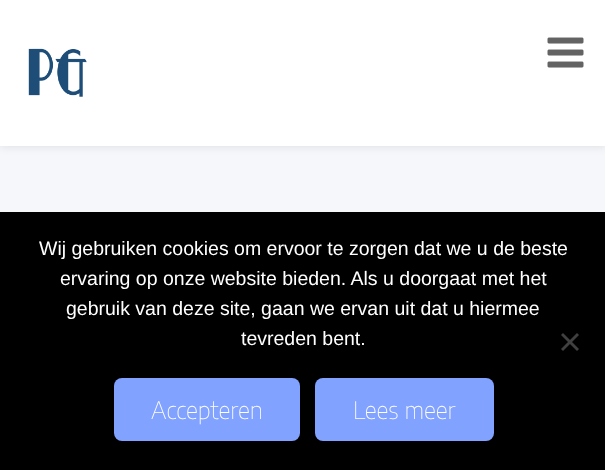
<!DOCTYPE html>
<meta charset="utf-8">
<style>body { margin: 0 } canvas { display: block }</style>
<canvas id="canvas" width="605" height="470"></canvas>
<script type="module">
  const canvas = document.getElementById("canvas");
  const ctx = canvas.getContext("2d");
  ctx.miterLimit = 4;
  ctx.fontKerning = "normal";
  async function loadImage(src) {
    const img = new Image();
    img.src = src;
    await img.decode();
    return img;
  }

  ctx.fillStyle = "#f6f7fa";
  ctx.fillRect(0, 0, 605, 470);
  ctx.fillStyle = "rgba(0, 0, 0, 0.09)";
  ctx.filter = "blur(4px)";
  ctx.beginPath();
  ctx.rect(0, 2, 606, 145);
  ctx.fill();
  ctx.filter = "none";
  ctx.fillStyle = "#ffffff";
  ctx.fillRect(0, 0, 605, 146);
  ctx.drawImage(await loadImage("img1.png"), 28, 48, 59, 49);
  ctx.drawImage(await loadImage("img2.png"), 547, 37, 37, 31);
  ctx.fillStyle = "#000000";
  ctx.fillRect(0, 212, 605, 258);
  ctx.font = "19.5px Liberation Sans";
  ctx.fillStyle = "#ffffff";
  ctx.fillText("Wij gebruiken cookies om ervoor te zorgen dat we u de beste", 39, 255);
  ctx.fillText("ervaring op onze website bieden. Als u doorgaat met het", 60, 285);
  ctx.fillText("gebruik van deze site, gaan we ervan uit dat u hiermee", 66, 315);
  ctx.fillText("tevreden bent.", 241, 345);
  ctx.fillStyle = "#404040";
  ctx.beginPath();
  ctx.moveTo(577, 333);
  ctx.lineTo(579, 335);
  ctx.lineTo(563, 351);
  ctx.lineTo(561, 349);
  ctx.closePath();
  ctx.fill();
  ctx.beginPath();
  ctx.moveTo(561, 335);
  ctx.lineTo(563, 333);
  ctx.lineTo(579, 349);
  ctx.lineTo(577, 351);
  ctx.closePath();
  ctx.fill();
  ctx.fillStyle = "#82a2ff";
  ctx.beginPath();
  ctx.roundRect(114, 378, 186, 63, 8);
  ctx.fill();
  ctx.font = "100 24px Encode Sans";
  ctx.fillStyle = "#ffffff";
  ctx.fillText("Accepteren", 151, 419);
  ctx.fillStyle = "#82a2ff";
  ctx.beginPath();
  ctx.roundRect(315, 378, 179, 63, 8);
  ctx.fill();
  ctx.fillStyle = "#ffffff";
  ctx.fillText("Lees meer", 353, 419);
</script>
